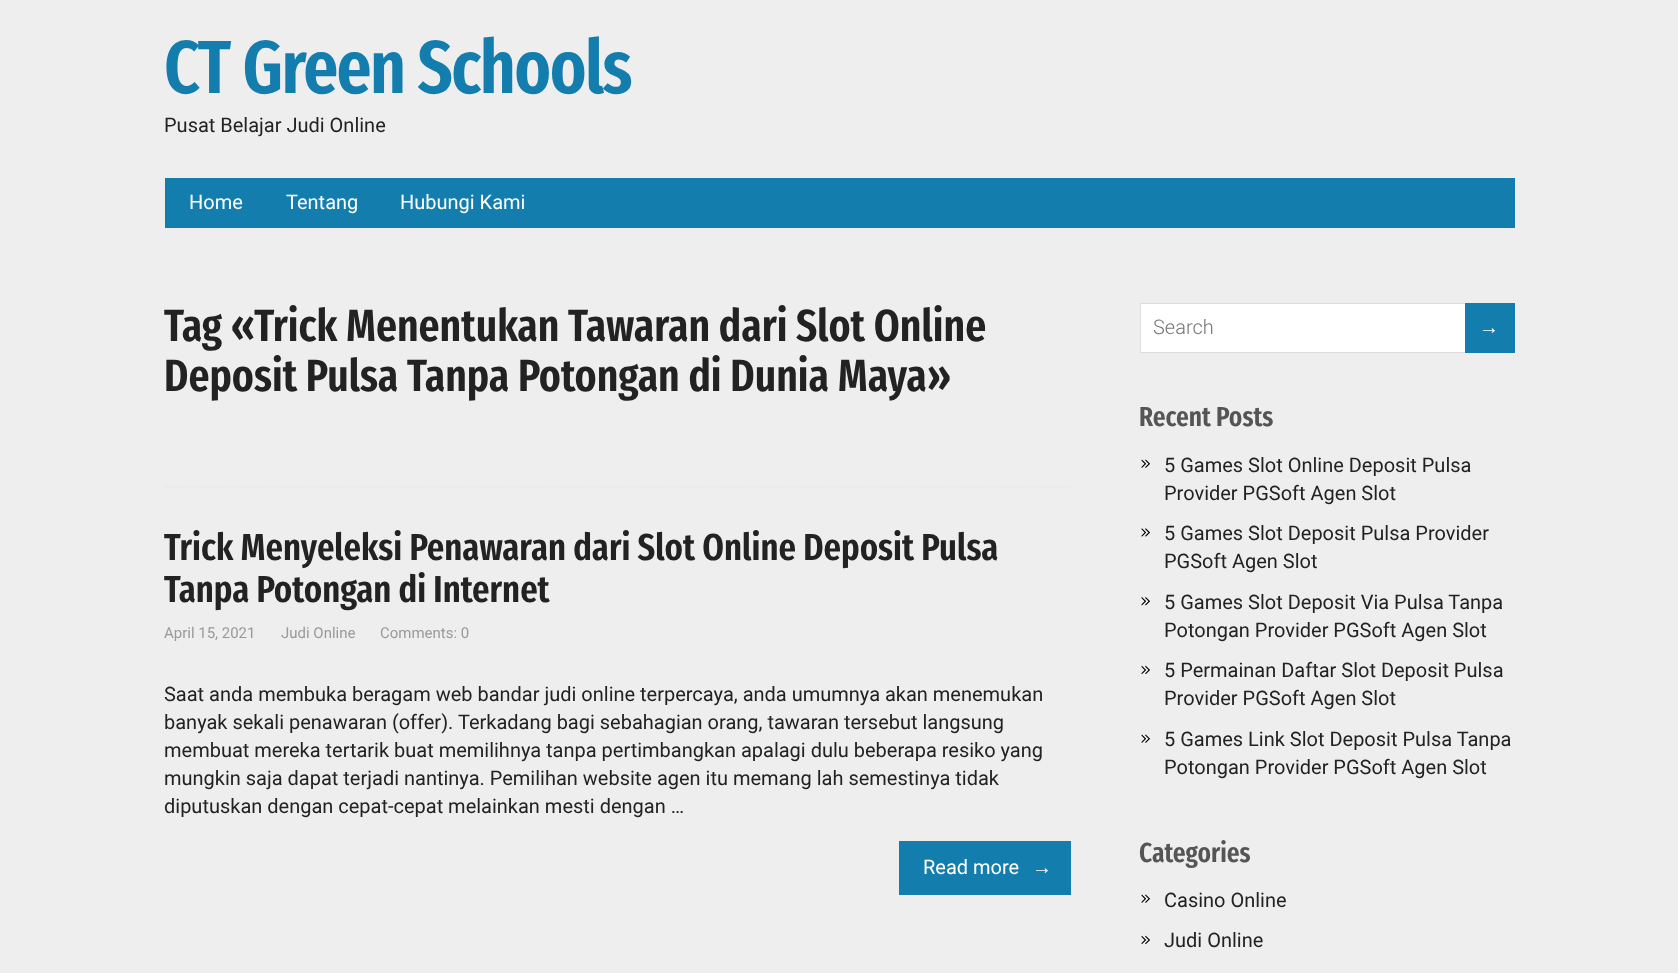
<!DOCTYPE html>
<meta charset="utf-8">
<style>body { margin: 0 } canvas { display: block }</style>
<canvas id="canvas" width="1678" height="973"></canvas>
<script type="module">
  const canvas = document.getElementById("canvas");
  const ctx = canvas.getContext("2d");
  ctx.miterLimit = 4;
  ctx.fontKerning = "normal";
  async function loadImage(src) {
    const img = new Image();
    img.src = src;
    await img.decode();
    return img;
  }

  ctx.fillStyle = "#eeeeee";
  ctx.fillRect(0, 0, 1678, 973);
  ctx.letterSpacing = "-1.5px";
  ctx.font = "600 75px Fira Sans Extra Condensed";
  ctx.fillStyle = "#137dad";
  ctx.fillText("CT Green Schools", 164, 93);
  ctx.letterSpacing = "0px";
  ctx.font = "20px Roboto";
  ctx.fillStyle = "#222222";
  ctx.fillText("Pusat Belajar Judi Online", 164, 132);
  ctx.fillStyle = "#137dad";
  ctx.fillRect(165, 178, 1350, 50);
  ctx.fillStyle = "#ffffff";
  ctx.fillText("Home", 189, 209);
  ctx.fillText("Tentang", 286, 209);
  ctx.fillText("Hubungi Kami", 400, 209);
  ctx.beginPath();
  ctx.moveTo(165, 487);
  ctx.lineTo(1071, 487);
  ctx.strokeStyle = "#e2e2e2";
  ctx.lineWidth = 1.2;
  ctx.setLineDash([1.25, 1.25]);
  ctx.stroke();
  ctx.font = "600 45px Fira Sans Extra Condensed";
  ctx.fillStyle = "#222222";
  ctx.fillText("Tag «Trick Menentukan Tawaran dari Slot Online", 164, 341);
  ctx.fillText("Deposit Pulsa Tanpa Potongan di Dunia Maya»", 164, 391);
  ctx.font = "600 37.5px Fira Sans Extra Condensed";
  ctx.fillText("Trick Menyeleksi Penawaran dari Slot Online Deposit Pulsa", 164, 560);
  ctx.fillText("Tanpa Potongan di Internet", 164, 602);
  ctx.font = "15px Roboto";
  ctx.fillStyle = "#999999";
  ctx.fillText("April 15, 2021", 164, 638);
  ctx.fillText("Judi Online", 281, 638);
  ctx.fillText("Comments: 0", 380, 638);
  ctx.font = "20px Roboto";
  ctx.fillStyle = "#222222";
  ctx.fillText("Saat anda membuka beragam web bandar judi online terpercaya, anda umumnya akan menemukan", 164, 701);
  ctx.fillText("banyak sekali penawaran (offer). Terkadang bagi sebahagian orang, tawaran tersebut langsung", 164, 729);
  ctx.fillText("membuat mereka tertarik buat memilihnya tanpa pertimbangkan apalagi dulu beberapa resiko yang", 164, 757);
  ctx.fillText("mungkin saja dapat terjadi nantinya. Pemilihan website agen itu memang lah semestinya tidak", 164, 785);
  ctx.fillText("diputuskan dengan cepat-cepat melainkan mesti dengan …", 164, 813);
  ctx.fillStyle = "#137dad";
  ctx.fillRect(899, 841, 172, 54);
  ctx.fillStyle = "#ffffff";
  ctx.fillText("Read more", 923, 874);
  ctx.font = "20px Liberation Sans";
  ctx.fillText("→", 1032, 874);
  ctx.fillRect(1141, 304, 324, 48);
  ctx.strokeStyle = "#dddddd";
  ctx.lineWidth = 1;
  ctx.setLineDash([]);
  ctx.strokeRect(1140.5, 303.5, 364, 49);
  ctx.font = "300 20px Roboto";
  ctx.fillStyle = "#757575";
  ctx.fillText("Search", 1153, 334);
  ctx.fillStyle = "#137dad";
  ctx.fillRect(1465, 303, 50, 50);
  ctx.font = "20px Liberation Sans";
  ctx.fillStyle = "#ffffff";
  ctx.fillText("→", 1479, 334);
  ctx.font = "600 27.5px Fira Sans Extra Condensed";
  ctx.fillStyle = "#555555";
  ctx.fillText("Recent Posts", 1139, 426);
  ctx.drawImage(await loadImage("img1.png"), 1141, 459, 9, 9);
  ctx.font = "20px Roboto";
  ctx.fillStyle = "#222222";
  ctx.fillText("5 Games Slot Online Deposit Pulsa", 1164, 472);
  ctx.fillText("Provider PGSoft Agen Slot", 1164, 500);
  ctx.drawImage(await loadImage("img2.png"), 1141, 528, 9, 9);
  ctx.fillText("5 Games Slot Deposit Pulsa Provider", 1164, 540);
  ctx.fillText("PGSoft Agen Slot", 1164, 568);
  ctx.drawImage(await loadImage("img3.png"), 1141, 597, 9, 9);
  ctx.fillText("5 Games Slot Deposit Via Pulsa Tanpa", 1164, 609);
  ctx.fillText("Potongan Provider PGSoft Agen Slot", 1164, 637);
  ctx.drawImage(await loadImage("img4.png"), 1141, 665, 9, 9);
  ctx.fillText("5 Permainan Daftar Slot Deposit Pulsa", 1164, 677);
  ctx.fillText("Provider PGSoft Agen Slot", 1164, 705);
  ctx.drawImage(await loadImage("img1.png"), 1141, 734, 9, 9);
  ctx.fillText("5 Games Link Slot Deposit Pulsa Tanpa", 1164, 746);
  ctx.fillText("Potongan Provider PGSoft Agen Slot", 1164, 774);
  ctx.font = "600 27.5px Fira Sans Extra Condensed";
  ctx.fillStyle = "#555555";
  ctx.fillText("Categories", 1139, 862);
  ctx.drawImage(await loadImage("img1.png"), 1141, 894, 9, 9);
  ctx.font = "20px Roboto";
  ctx.fillStyle = "#222222";
  ctx.fillText("Casino Online", 1164, 907);
  ctx.drawImage(await loadImage("img4.png"), 1141, 935, 9, 9);
  ctx.fillText("Judi Online", 1164, 947);
</script>
